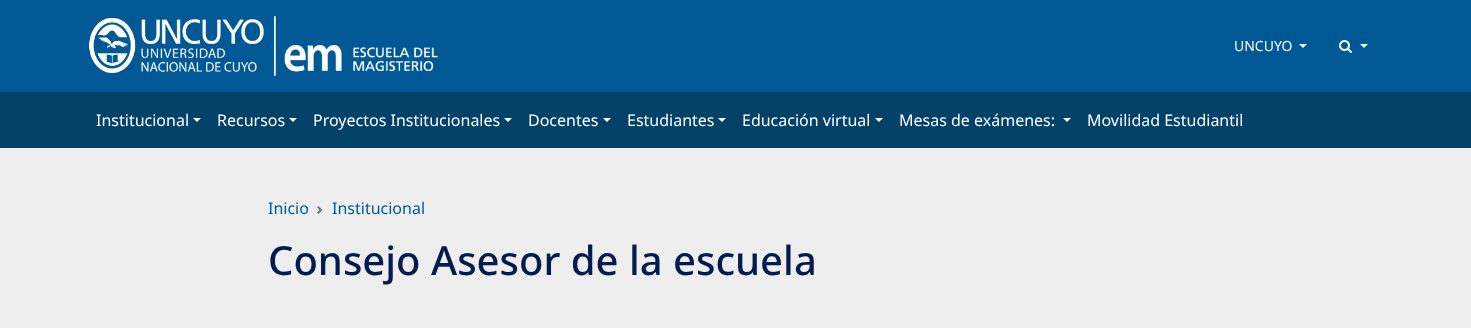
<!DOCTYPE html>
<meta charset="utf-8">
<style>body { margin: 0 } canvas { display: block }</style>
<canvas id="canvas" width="1471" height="328"></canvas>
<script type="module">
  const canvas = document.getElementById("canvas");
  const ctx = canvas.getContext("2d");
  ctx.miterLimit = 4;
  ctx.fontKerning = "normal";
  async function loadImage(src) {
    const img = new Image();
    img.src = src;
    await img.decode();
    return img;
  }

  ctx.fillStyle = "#005995";
  ctx.fillRect(0, 0, 1471, 328);
  ctx.drawImage(await loadImage("img1.png"), 89, 16, 349, 60);
  ctx.font = "14px Noto Sans";
  ctx.fillStyle = "#f8f9fa";
  ctx.fillText("UNCUYO", 1234, 51);
  ctx.beginPath();
  ctx.moveTo(1299, 44);
  ctx.lineTo(1307, 44);
  ctx.lineTo(1303, 48);
  ctx.closePath();
  ctx.fill();
  ctx.drawImage(await loadImage("img2.png"), 1339, 40, 13, 13);
  ctx.beginPath();
  ctx.moveTo(1360, 44);
  ctx.lineTo(1368, 44);
  ctx.lineTo(1364, 48);
  ctx.closePath();
  ctx.fill();
  ctx.fillStyle = "#024168";
  ctx.fillRect(0, 92, 1471, 56);
  ctx.font = "16px Noto Sans";
  ctx.fillStyle = "#ffffff";
  ctx.fillText("Institucional", 96, 126);
  ctx.beginPath();
  ctx.moveTo(193, 118);
  ctx.lineTo(201, 118);
  ctx.lineTo(197, 122);
  ctx.closePath();
  ctx.fill();
  ctx.fillText("Recursos", 217, 126);
  ctx.beginPath();
  ctx.moveTo(289, 118);
  ctx.lineTo(297, 118);
  ctx.lineTo(293, 122);
  ctx.closePath();
  ctx.fill();
  ctx.fillText("Proyectos Institucionales", 313, 126);
  ctx.beginPath();
  ctx.moveTo(504, 118);
  ctx.lineTo(512, 118);
  ctx.lineTo(508, 122);
  ctx.closePath();
  ctx.fill();
  ctx.fillText("Docentes", 528, 126);
  ctx.beginPath();
  ctx.moveTo(603, 118);
  ctx.lineTo(611, 118);
  ctx.lineTo(607, 122);
  ctx.closePath();
  ctx.fill();
  ctx.fillText("Estudiantes", 627, 126);
  ctx.beginPath();
  ctx.moveTo(718, 118);
  ctx.lineTo(726, 118);
  ctx.lineTo(722, 122);
  ctx.closePath();
  ctx.fill();
  ctx.fillText("Educación virtual", 742, 126);
  ctx.beginPath();
  ctx.moveTo(875, 118);
  ctx.lineTo(883, 118);
  ctx.lineTo(879, 122);
  ctx.closePath();
  ctx.fill();
  ctx.fillText("Mesas de exámenes:", 899, 126);
  ctx.beginPath();
  ctx.moveTo(1063, 118);
  ctx.lineTo(1071, 118);
  ctx.lineTo(1067, 122);
  ctx.closePath();
  ctx.fill();
  ctx.fillText("Movilidad Estudiantil", 1087, 126);
  ctx.fillStyle = "#eeeeee";
  ctx.fillRect(0, 148, 1471, 180);
  ctx.fillStyle = "#005995";
  ctx.fillText("Inicio", 268, 214);
  ctx.drawImage(await loadImage("img3.png"), 317, 206, 6, 8);
  ctx.fillText("Institucional", 332, 214);
  ctx.font = "500 40px Noto Sans";
  ctx.fillStyle = "#031b4f";
  ctx.fillText("Consejo Asesor de la escuela", 268, 275);
</script>
